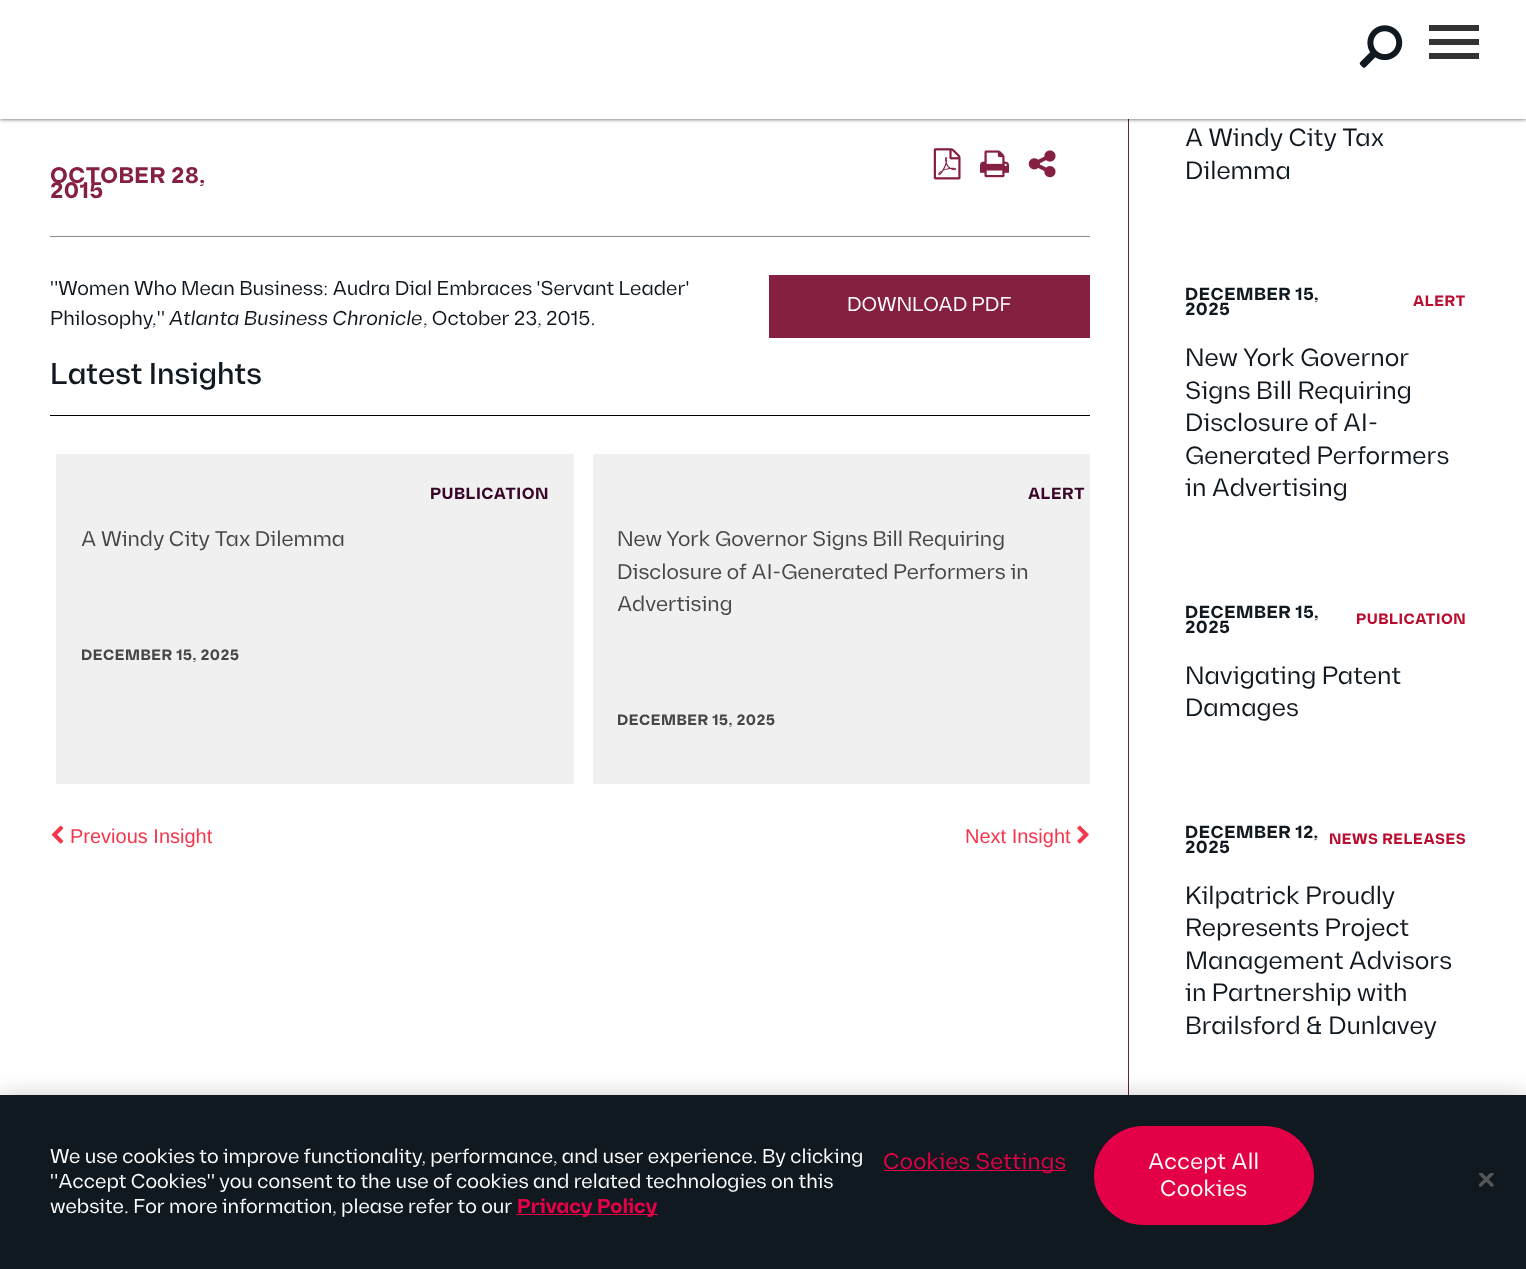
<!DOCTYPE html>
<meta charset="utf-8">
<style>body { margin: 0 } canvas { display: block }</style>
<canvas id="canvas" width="1526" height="1269"></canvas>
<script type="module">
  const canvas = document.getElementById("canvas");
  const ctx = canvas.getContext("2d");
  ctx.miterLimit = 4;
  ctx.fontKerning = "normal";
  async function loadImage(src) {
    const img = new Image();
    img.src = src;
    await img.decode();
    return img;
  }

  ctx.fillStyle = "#ffffff";
  ctx.fillRect(0, 0, 1526, 1269);
  ctx.fillStyle = "#612141";
  ctx.fillRect(1128, 119, 1, 976);
  ctx.fillStyle = "rgba(0, 0, 0, 0.7)";
  ctx.filter = "blur(2px)";
  ctx.beginPath();
  ctx.rect(0, 0, 1526, 119);
  ctx.fill();
  ctx.filter = "none";
  ctx.fillStyle = "#ffffff";
  ctx.fillRect(0, 0, 1526, 119);
  ctx.drawImage(await loadImage("img1.png"), 1359, 25, 44, 43);
  ctx.fillStyle = "#333333";
  ctx.fillRect(1429, 39, 50, 6);
  ctx.fillRect(1429, 25, 50, 6);
  ctx.fillRect(1429, 53, 50, 6);
  ctx.fillStyle = "#8c8c8c";
  ctx.fillRect(50, 236, 1040, 1);
  ctx.letterSpacing = "0.5px";
  ctx.font = "bold 22.5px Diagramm";
  ctx.fillStyle = "#862041";
  ctx.fillText("OCTOBER 28,", 50, 183);
  ctx.fillText("2015", 50, 198);
  ctx.drawImage(await loadImage("img2.png"), 933, 148, 28, 32);
  ctx.drawImage(await loadImage("img3.png"), 980, 150, 29, 28);
  ctx.drawImage(await loadImage("img4.png"), 1028, 150, 28, 28);
  ctx.letterSpacing = "0px";
  ctx.font = "20px Diagramm";
  ctx.fillStyle = "#101820";
  ctx.fillText("\"Women Who Mean Business: Audra Dial Embraces 'Servant Leader'", 50, 295);
  ctx.fillText("Philosophy,\"", 50, 325);
  ctx.font = "italic 20px Diagramm";
  ctx.fillText("Atlanta Business Chronicle", 169, 325);
  ctx.font = "20px Diagramm";
  ctx.fillText(", October 23, 2015.", 423, 325);
  ctx.fillStyle = "#862041";
  ctx.fillRect(769, 275, 321, 63);
  ctx.fillStyle = "#ffffff";
  ctx.fillText("DOWNLOAD PDF", 847, 311);
  ctx.fillStyle = "#000000";
  ctx.fillRect(50, 415, 1040, 1);
  ctx.font = "500 30px Diagramm";
  ctx.fillStyle = "#101820";
  ctx.fillText("Latest Insights", 50, 384);
  ctx.fillStyle = "#f0f0f0";
  ctx.fillRect(56, 454, 518, 330);
  ctx.letterSpacing = "0.5px";
  ctx.font = "bold 16.25px Diagramm";
  ctx.fillStyle = "#390528";
  ctx.fillText("PUBLICATION", 430, 499);
  ctx.letterSpacing = "0px";
  ctx.font = "21.25px Diagramm";
  ctx.fillStyle = "#464646";
  ctx.fillText("A Windy City Tax Dilemma", 81, 546);
  ctx.letterSpacing = "0.5px";
  ctx.font = "bold 15px Diagramm";
  ctx.fillText("DECEMBER 15, 2025", 81, 660);
  ctx.fillStyle = "#f0f0f0";
  ctx.fillRect(593, 454, 497, 330);
  ctx.font = "bold 16.25px Diagramm";
  ctx.fillStyle = "#390528";
  ctx.fillText("ALERT", 1028, 499);
  ctx.letterSpacing = "0px";
  ctx.font = "21.25px Diagramm";
  ctx.fillStyle = "#464646";
  ctx.fillText("New York Governor Signs Bill Requiring", 617, 546);
  ctx.fillText("Disclosure of AI-Generated Performers in", 617, 579);
  ctx.fillText("Advertising", 617, 611);
  ctx.letterSpacing = "0.5px";
  ctx.font = "bold 15px Diagramm";
  ctx.fillText("DECEMBER 15, 2025", 617, 725);
  ctx.drawImage(await loadImage("img5.png"), 51, 825, 13, 19);
  ctx.letterSpacing = "0px";
  ctx.font = "20px Liberation Sans";
  ctx.fillStyle = "#f4364c";
  ctx.fillText("Previous Insight", 70, 843);
  ctx.fillText("Next Insight", 965, 843);
  ctx.drawImage(await loadImage("img6.png"), 1077, 825, 12, 19);
  ctx.font = "25px Diagramm";
  ctx.fillStyle = "#101820";
  ctx.fillText("A Windy City Tax", 1185, 146);
  ctx.fillText("Dilemma", 1185, 179);
  ctx.letterSpacing = "0.5px";
  ctx.font = "bold 17.5px Diagramm";
  ctx.fillText("DECEMBER 15,", 1185, 300);
  ctx.fillText("2025", 1185, 315);
  ctx.font = "bold 15px Diagramm";
  ctx.fillStyle = "#ba0c2f";
  ctx.fillText("ALERT", 1413, 306);
  ctx.letterSpacing = "0px";
  ctx.font = "25px Diagramm";
  ctx.fillStyle = "#101820";
  ctx.fillText("New York Governor", 1185, 366);
  ctx.fillText("Signs Bill Requiring", 1185, 399);
  ctx.fillText("Disclosure of AI-", 1185, 431);
  ctx.fillText("Generated Performers", 1185, 464);
  ctx.fillText("in Advertising", 1185, 496);
  ctx.letterSpacing = "0.5px";
  ctx.font = "bold 17.5px Diagramm";
  ctx.fillText("DECEMBER 15,", 1185, 618);
  ctx.fillText("2025", 1185, 633);
  ctx.font = "bold 15px Diagramm";
  ctx.fillStyle = "#ba0c2f";
  ctx.fillText("PUBLICATION", 1356, 624);
  ctx.letterSpacing = "0px";
  ctx.font = "25px Diagramm";
  ctx.fillStyle = "#101820";
  ctx.fillText("Navigating Patent", 1185, 684);
  ctx.fillText("Damages", 1185, 716);
  ctx.letterSpacing = "0.5px";
  ctx.font = "bold 17.5px Diagramm";
  ctx.fillText("DECEMBER 12,", 1185, 838);
  ctx.fillText("2025", 1185, 853);
  ctx.font = "bold 15px Diagramm";
  ctx.fillStyle = "#ba0c2f";
  ctx.fillText("NEWS RELEASES", 1329, 844);
  ctx.letterSpacing = "0px";
  ctx.font = "25px Diagramm";
  ctx.fillStyle = "#101820";
  ctx.fillText("Kilpatrick Proudly", 1185, 904);
  ctx.fillText("Represents Project", 1185, 936);
  ctx.fillText("Management Advisors", 1185, 969);
  ctx.fillText("in Partnership with", 1185, 1001);
  ctx.fillText("Brailsford & Dunlavey", 1185, 1034);
  ctx.fillStyle = "rgba(0, 0, 0, 0.2)";
  ctx.filter = "blur(11px)";
  ctx.beginPath();
  ctx.rect(0, 1095, 1526, 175);
  ctx.fill();
  ctx.filter = "none";
  ctx.fillStyle = "#101820";
  ctx.fillRect(0, 1095, 1526, 174);
  ctx.font = "20px Diagramm";
  ctx.fillStyle = "#ffffff";
  ctx.fillText("We use cookies to improve functionality, performance, and user experience. By clicking", 50, 1163);
  ctx.fillText("\"Accept Cookies\" you consent to the use of cookies and related technologies on this", 50, 1188);
  ctx.fillText("website. For more information, please refer to our", 50, 1213);
  ctx.fillStyle = "#e40046";
  ctx.fillRect(516, 1214, 142, 1);
  ctx.font = "bold 20px Diagramm";
  ctx.fillText("Privacy Policy", 517, 1213);
  ctx.fillRect(884, 1170, 182, 1);
  ctx.letterSpacing = "0.25px";
  ctx.font = "22.5px Diagramm";
  ctx.fillText("Cookies Settings", 883, 1169);
  ctx.beginPath();
  ctx.roundRect(1094, 1126, 220, 99, 49.5);
  ctx.fill();
  ctx.fillStyle = "#ffffff";
  ctx.fillText("Accept All", 1148, 1169);
  ctx.fillText("Cookies", 1160, 1196);
  ctx.drawImage(await loadImage("img7.png"), 1479, 1173, 15, 14);
</script>
